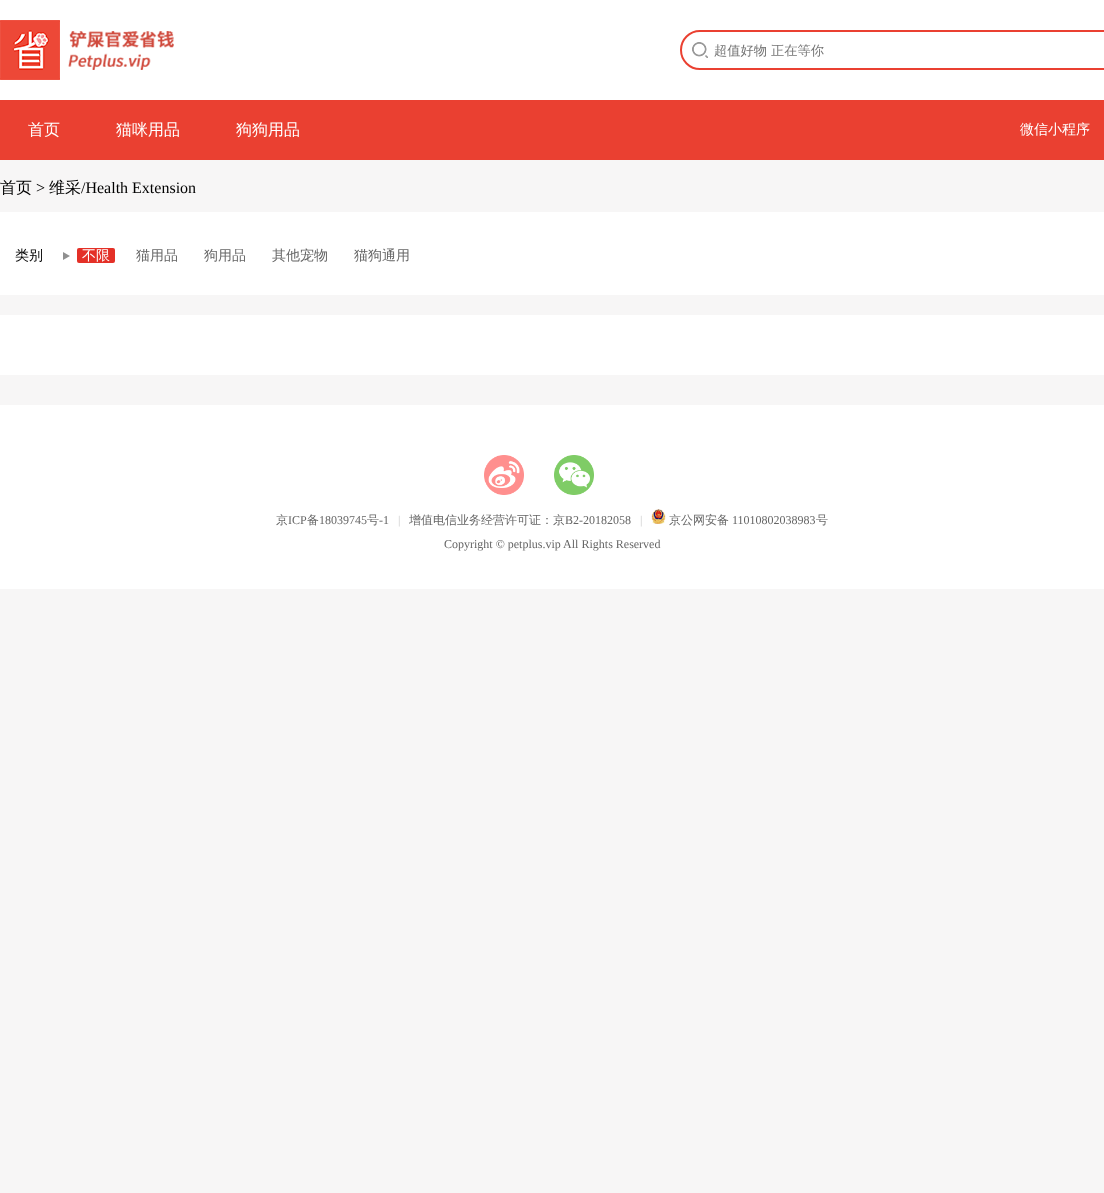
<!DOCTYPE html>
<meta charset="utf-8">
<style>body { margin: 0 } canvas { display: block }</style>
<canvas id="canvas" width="1104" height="1193"></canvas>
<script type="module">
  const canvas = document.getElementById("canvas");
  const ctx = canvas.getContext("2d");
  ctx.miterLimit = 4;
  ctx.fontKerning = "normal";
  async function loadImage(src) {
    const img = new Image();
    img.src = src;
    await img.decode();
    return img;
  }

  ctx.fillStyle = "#f7f6f6";
  ctx.fillRect(0, 0, 1104, 1193);
  ctx.fillStyle = "#ffffff";
  ctx.fillRect(0, 0, 1104, 100);
  ctx.drawImage(await loadImage("img1.png"), 0, 20, 174, 60);
  ctx.drawImage(await loadImage("img2.png"), 692, 42, 16, 16);
  ctx.beginPath();
  ctx.roundRect(681, 31, 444, 38, 19);
  ctx.strokeStyle = "#ea4031";
  ctx.lineWidth = 2;
  ctx.stroke();
  ctx.font = "500 13.25px WenQuanYi Zen Hei";
  ctx.fillStyle = "#757575";
  ctx.fillText("超值好物 正在等你", 714, 55);
  ctx.fillStyle = "#ea4031";
  ctx.fillRect(0, 100, 1104, 60);
  ctx.font = "500 16px WenQuanYi Zen Hei";
  ctx.fillStyle = "#ffffff";
  ctx.fillText("首页", 28, 135);
  ctx.fillText("猫咪用品", 116, 135);
  ctx.fillText("狗狗用品", 236, 135);
  ctx.font = "500 14px WenQuanYi Zen Hei";
  ctx.fillText("微信小程序", 1020, 134);
  ctx.font = "500 16px WenQuanYi Zen Hei";
  ctx.fillStyle = "#000000";
  ctx.fillText("首页", 0, 193);
  ctx.font = "16px Liberation Serif";
  ctx.fillText(">", 36, 193);
  ctx.font = "500 16px WenQuanYi Zen Hei";
  ctx.fillText("维采", 49, 193);
  ctx.font = "16px Liberation Serif";
  ctx.fillText("/Health Extension", 81, 193);
  ctx.fillStyle = "#ffffff";
  ctx.fillRect(0, 212, 1104, 83);
  ctx.drawImage(await loadImage("img3.png"), 63, 252, 7, 8);
  ctx.font = "500 14px WenQuanYi Zen Hei";
  ctx.fillStyle = "#000000";
  ctx.fillText("类别", 15, 260);
  ctx.fillStyle = "#e43027";
  ctx.beginPath();
  ctx.roundRect(77, 248, 38, 15, 2);
  ctx.fill();
  ctx.fillStyle = "#ffffff";
  ctx.fillText("不限", 82, 260);
  ctx.fillStyle = "#666666";
  ctx.fillText("猫用品", 136, 260);
  ctx.fillText("狗用品", 204, 260);
  ctx.fillText("其他宠物", 272, 260);
  ctx.fillText("猫狗通用", 354, 260);
  ctx.fillStyle = "#ffffff";
  ctx.fillRect(0, 315, 1104, 60);
  ctx.fillRect(0, 405, 1104, 184);
  ctx.drawImage(await loadImage("img4.png"), 484, 455, 40, 40);
  ctx.drawImage(await loadImage("img5.png"), 554, 455, 40, 40);
  ctx.font = "500 12px WenQuanYi Zen Hei";
  ctx.fillStyle = "#666666";
  ctx.fillText("京", 276, 524);
  ctx.font = "12px Liberation Serif";
  ctx.fillText("ICP", 288, 524);
  ctx.font = "500 12px WenQuanYi Zen Hei";
  ctx.fillText("备", 307, 524);
  ctx.font = "12px Liberation Serif";
  ctx.fillText("18039745", 319, 524);
  ctx.font = "500 12px WenQuanYi Zen Hei";
  ctx.fillText("号", 367, 524);
  ctx.font = "12px Liberation Serif";
  ctx.fillText("-1", 379, 524);
  ctx.fillStyle = "#cccccc";
  ctx.fillText("|", 398, 524);
  ctx.font = "500 12px WenQuanYi Zen Hei";
  ctx.fillStyle = "#666666";
  ctx.fillText("增值电信业务经营许可证：京", 409, 524);
  ctx.font = "12px Liberation Serif";
  ctx.fillText("B2-20182058", 565, 524);
  ctx.fillStyle = "#cccccc";
  ctx.fillText("|", 640, 524);
  ctx.drawImage(await loadImage("img6.png"), 651, 509, 15, 15);
  ctx.font = "500 12px WenQuanYi Zen Hei";
  ctx.fillStyle = "#666666";
  ctx.fillText("京公网安备", 669, 524);
  ctx.font = "12px Liberation Serif";
  ctx.fillText("11010802038983", 732, 524);
  ctx.font = "500 12px WenQuanYi Zen Hei";
  ctx.fillText("号", 816, 524);
  ctx.font = "12px Liberation Serif";
  ctx.fillText("Copyright © petplus.vip All Rights Reserved", 444, 548);
</script>
